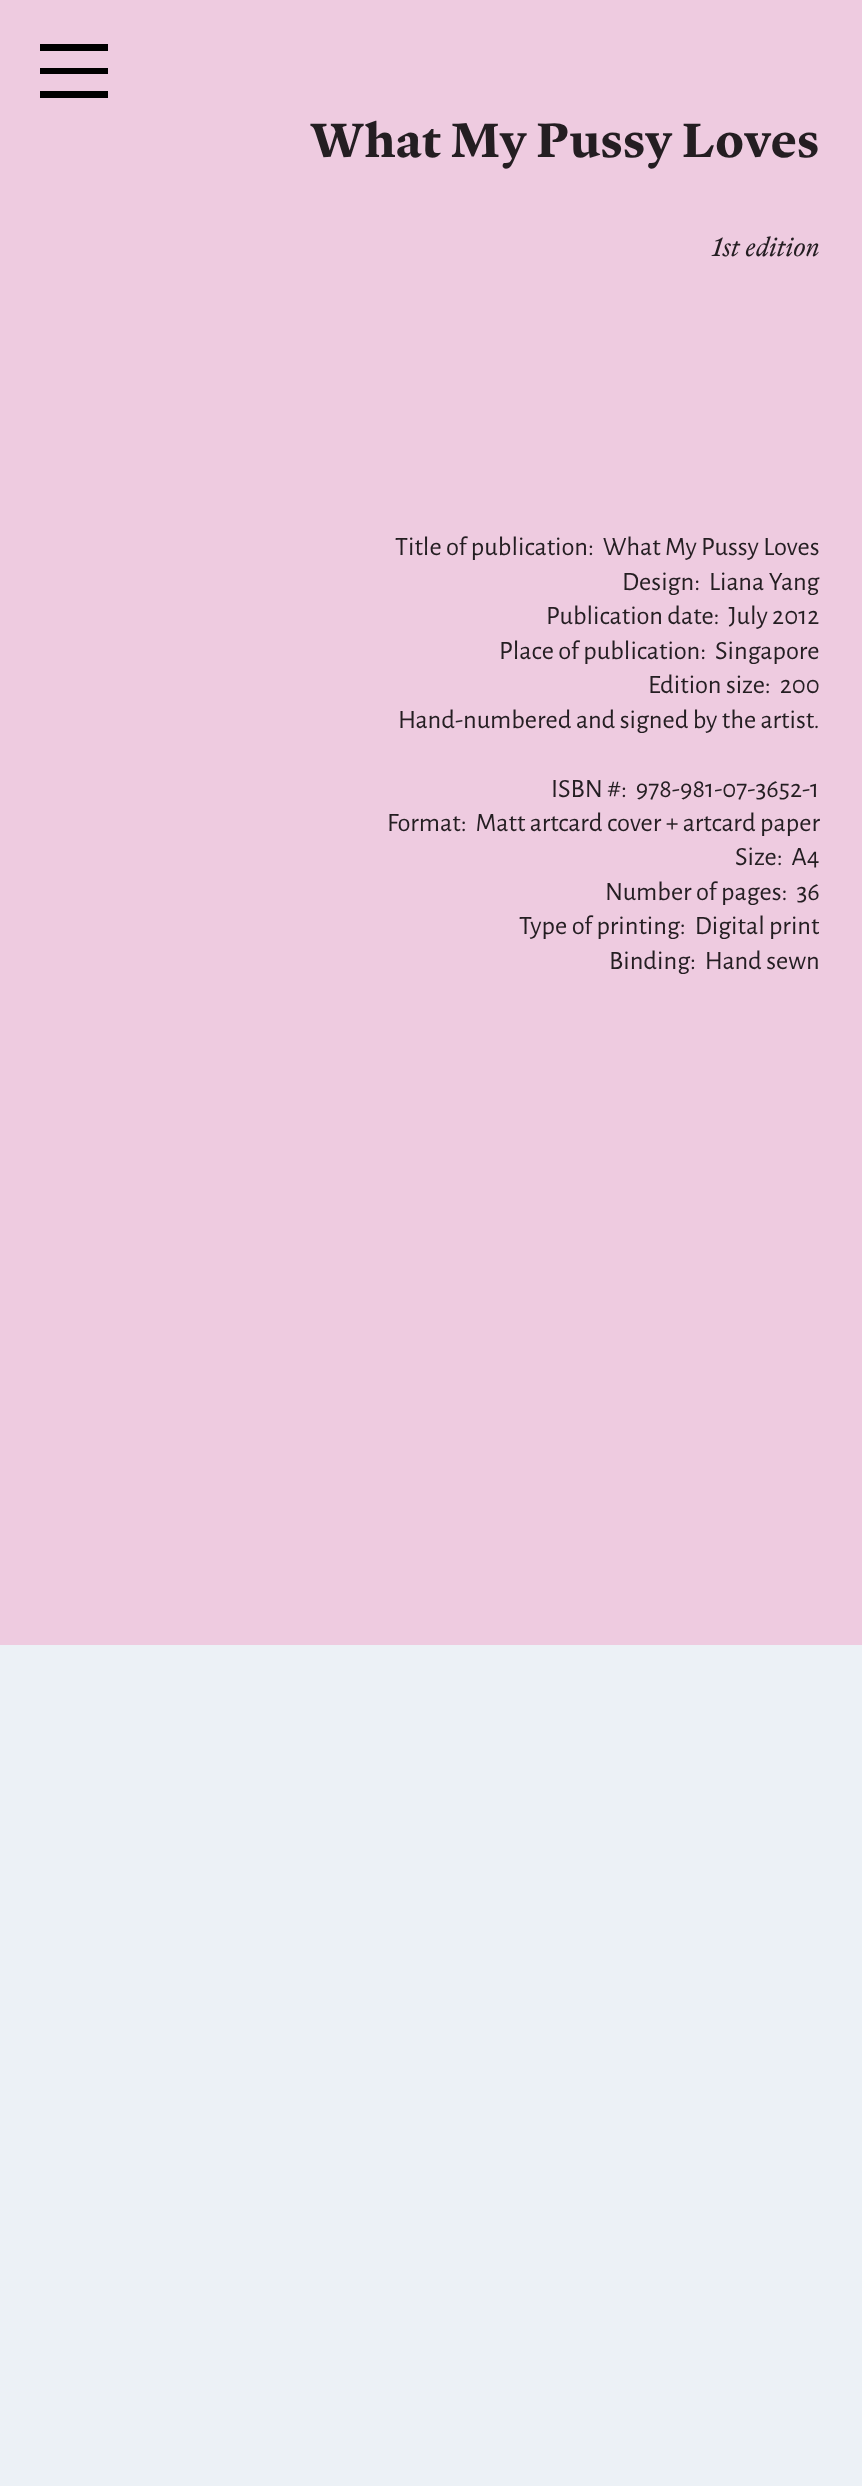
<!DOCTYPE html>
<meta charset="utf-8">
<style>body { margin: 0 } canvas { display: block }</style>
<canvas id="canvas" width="862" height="2486"></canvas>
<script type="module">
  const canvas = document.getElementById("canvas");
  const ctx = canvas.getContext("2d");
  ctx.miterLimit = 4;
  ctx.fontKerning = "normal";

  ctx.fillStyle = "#ecf1f6";
  ctx.fillRect(0, 0, 862, 2486);
  ctx.fillStyle = "#eecbe0";
  ctx.fillRect(0, 0, 862, 1645);
  ctx.fillStyle = "#000000";
  ctx.beginPath();
  ctx.moveTo(108, 44);
  ctx.lineTo(108, 51);
  ctx.lineTo(40, 51);
  ctx.lineTo(40, 44);
  ctx.closePath();
  ctx.moveTo(108, 68);
  ctx.lineTo(108, 74);
  ctx.lineTo(40, 74);
  ctx.lineTo(40, 68);
  ctx.closePath();
  ctx.moveTo(108, 91);
  ctx.lineTo(108, 98);
  ctx.lineTo(40, 98);
  ctx.lineTo(40, 91);
  ctx.closePath();
  ctx.fill();
  ctx.font = "bold 48.6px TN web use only";
  ctx.fillStyle = "#241e22";
  ctx.fillText("What My Pussy Loves", 310, 157);
  ctx.font = "italic 26.5px TN web use only";
  ctx.fillText("1st edition", 712, 256);
  ctx.font = "26.5px Alegreya Sans";
  ctx.fillText("Title of publication:  What My Pussy Loves", 395, 555);
  ctx.fillText("Design:  Liana Yang", 622, 590);
  ctx.fillText("Publication date:  July 2012", 546, 624);
  ctx.fillText("Place of publication:  Singapore", 499, 659);
  ctx.fillText("Edition size:  200", 648, 693);
  ctx.fillText("Hand-numbered and signed by the artist.", 398, 728);
  ctx.fillText("ISBN #:  978-981-07-3652-1", 551, 797);
  ctx.fillText("Format:  Matt artcard cover + artcard paper", 387, 831);
  ctx.fillText("Size:  A4", 735, 865);
  ctx.fillText("Number of pages:  36", 605, 900);
  ctx.fillText("Type of printing:  Digital print", 519, 934);
  ctx.fillText("Binding:  Hand sewn", 609, 969);
</script>
